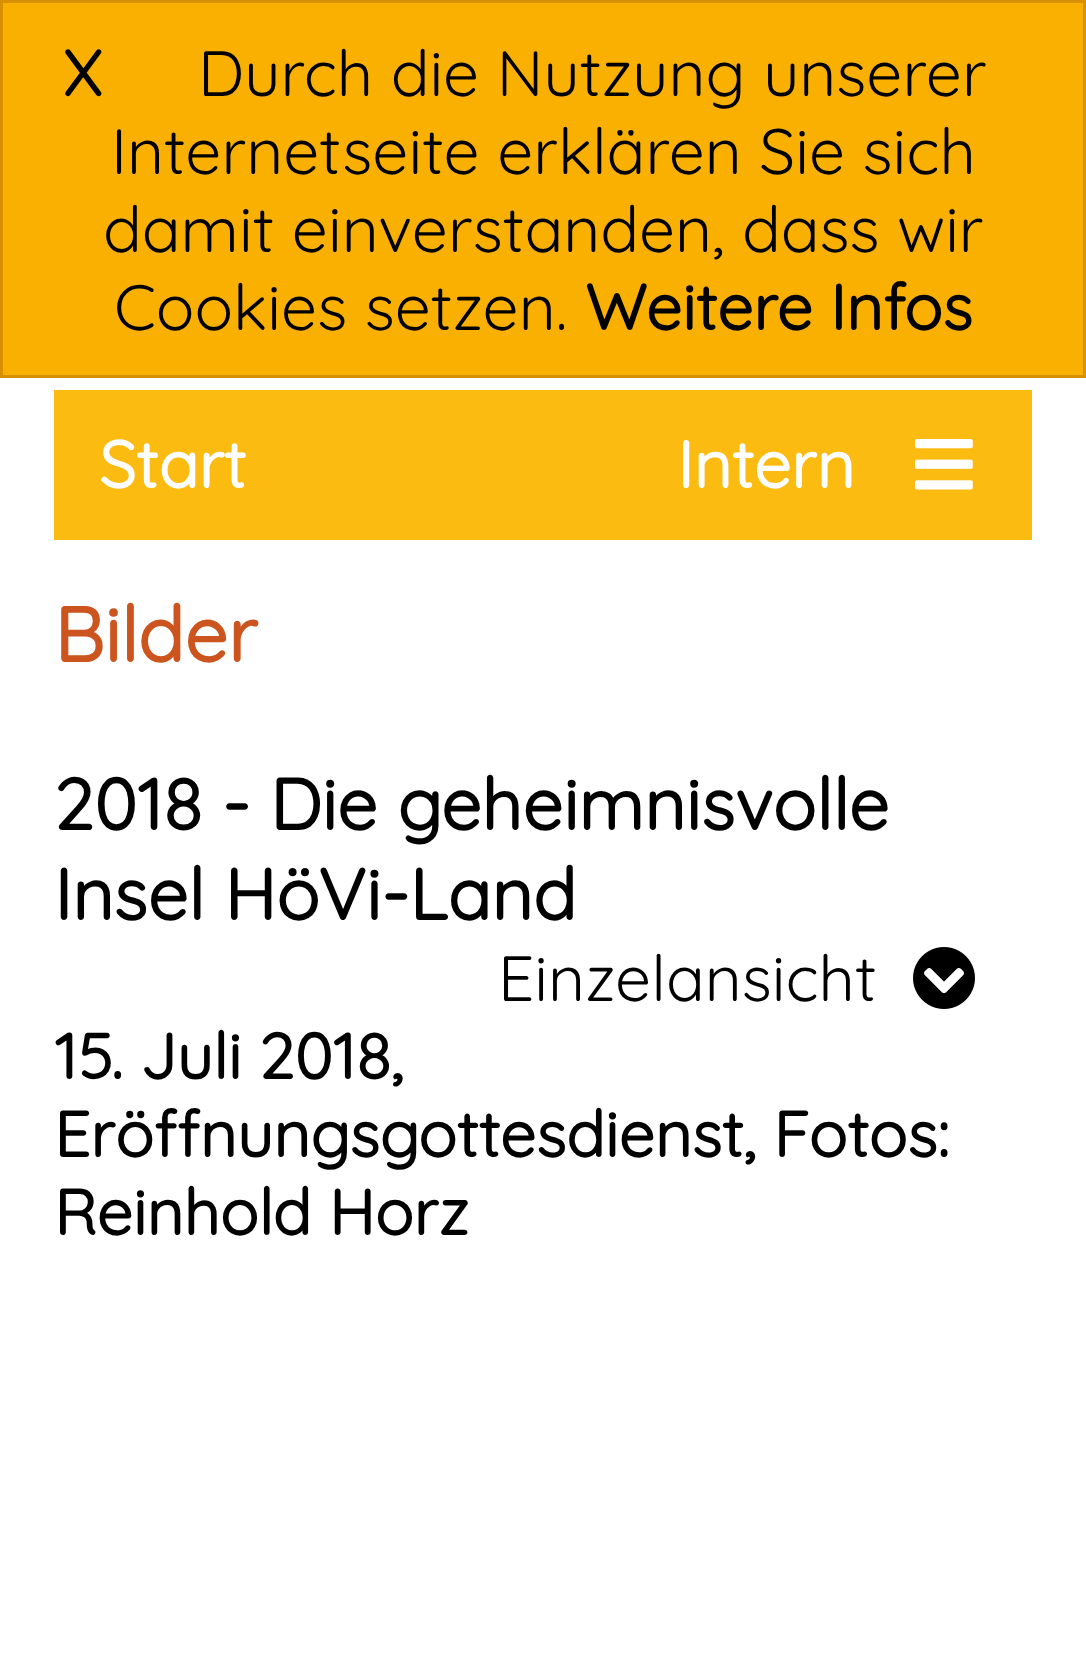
<!DOCTYPE html>
<meta charset="utf-8">
<style>body { margin: 0 } canvas { display: block }</style>
<canvas id="canvas" width="1086" height="1669"></canvas>
<script type="module">
  const canvas = document.getElementById("canvas");
  const ctx = canvas.getContext("2d");
  ctx.miterLimit = 4;
  ctx.fontKerning = "normal";
  async function loadImage(src) {
    const img = new Image();
    img.src = src;
    await img.decode();
    return img;
  }

  ctx.fillStyle = "#ffffff";
  ctx.fillRect(0, 0, 1086, 1669);
  ctx.fillStyle = "#f9b000";
  ctx.beginPath();
  ctx.rect(1.5, 1.5, 1083, 375);
  ctx.fill();
  ctx.strokeStyle = "#d79000";
  ctx.lineWidth = 3;
  ctx.stroke();
  ctx.font = "bold 64px Quicksand";
  ctx.fillStyle = "#000000";
  ctx.fillText("X", 63, 96);
  ctx.font = "64px Quicksand";
  ctx.fillText("Durch die Nutzung unserer", 198, 96);
  ctx.fillText("Internetseite erklären Sie sich", 111, 174);
  ctx.fillText("damit einverstanden, dass wir", 103, 252);
  ctx.fillText("Cookies setzen.", 114, 330);
  ctx.font = "bold 64px Quicksand";
  ctx.fillText("Weitere Infos", 585, 330);
  ctx.fillStyle = "#fbbb10";
  ctx.fillRect(54, 390, 978, 150);
  ctx.font = "bold 66px Quicksand";
  ctx.fillStyle = "#ffffff";
  ctx.fillText("Start", 99, 488);
  ctx.fillText("Intern", 677, 488);
  ctx.drawImage(await loadImage("img1.png"), 915, 439, 58, 51);
  ctx.font = "bold 77px Quicksand";
  ctx.fillStyle = "#cc541f";
  ctx.fillText("Bilder", 54, 662);
  ctx.font = "bold 72px Quicksand";
  ctx.fillStyle = "#000000";
  ctx.fillText("2018 - Die geheimnisvolle", 54, 830);
  ctx.fillText("Insel HöVi-Land", 54, 920);
  ctx.font = "64px Quicksand";
  ctx.fillText("Einzelansicht", 498, 1001);
  ctx.drawImage(await loadImage("img2.png"), 913, 947, 62, 62);
  ctx.font = "bold 64px Quicksand";
  ctx.fillText("15. Juli 2018,", 54, 1079);
  ctx.fillText("Eröffnungsgottesdienst, Fotos:", 54, 1157);
  ctx.fillText("Reinhold Horz", 54, 1235);
</script>
